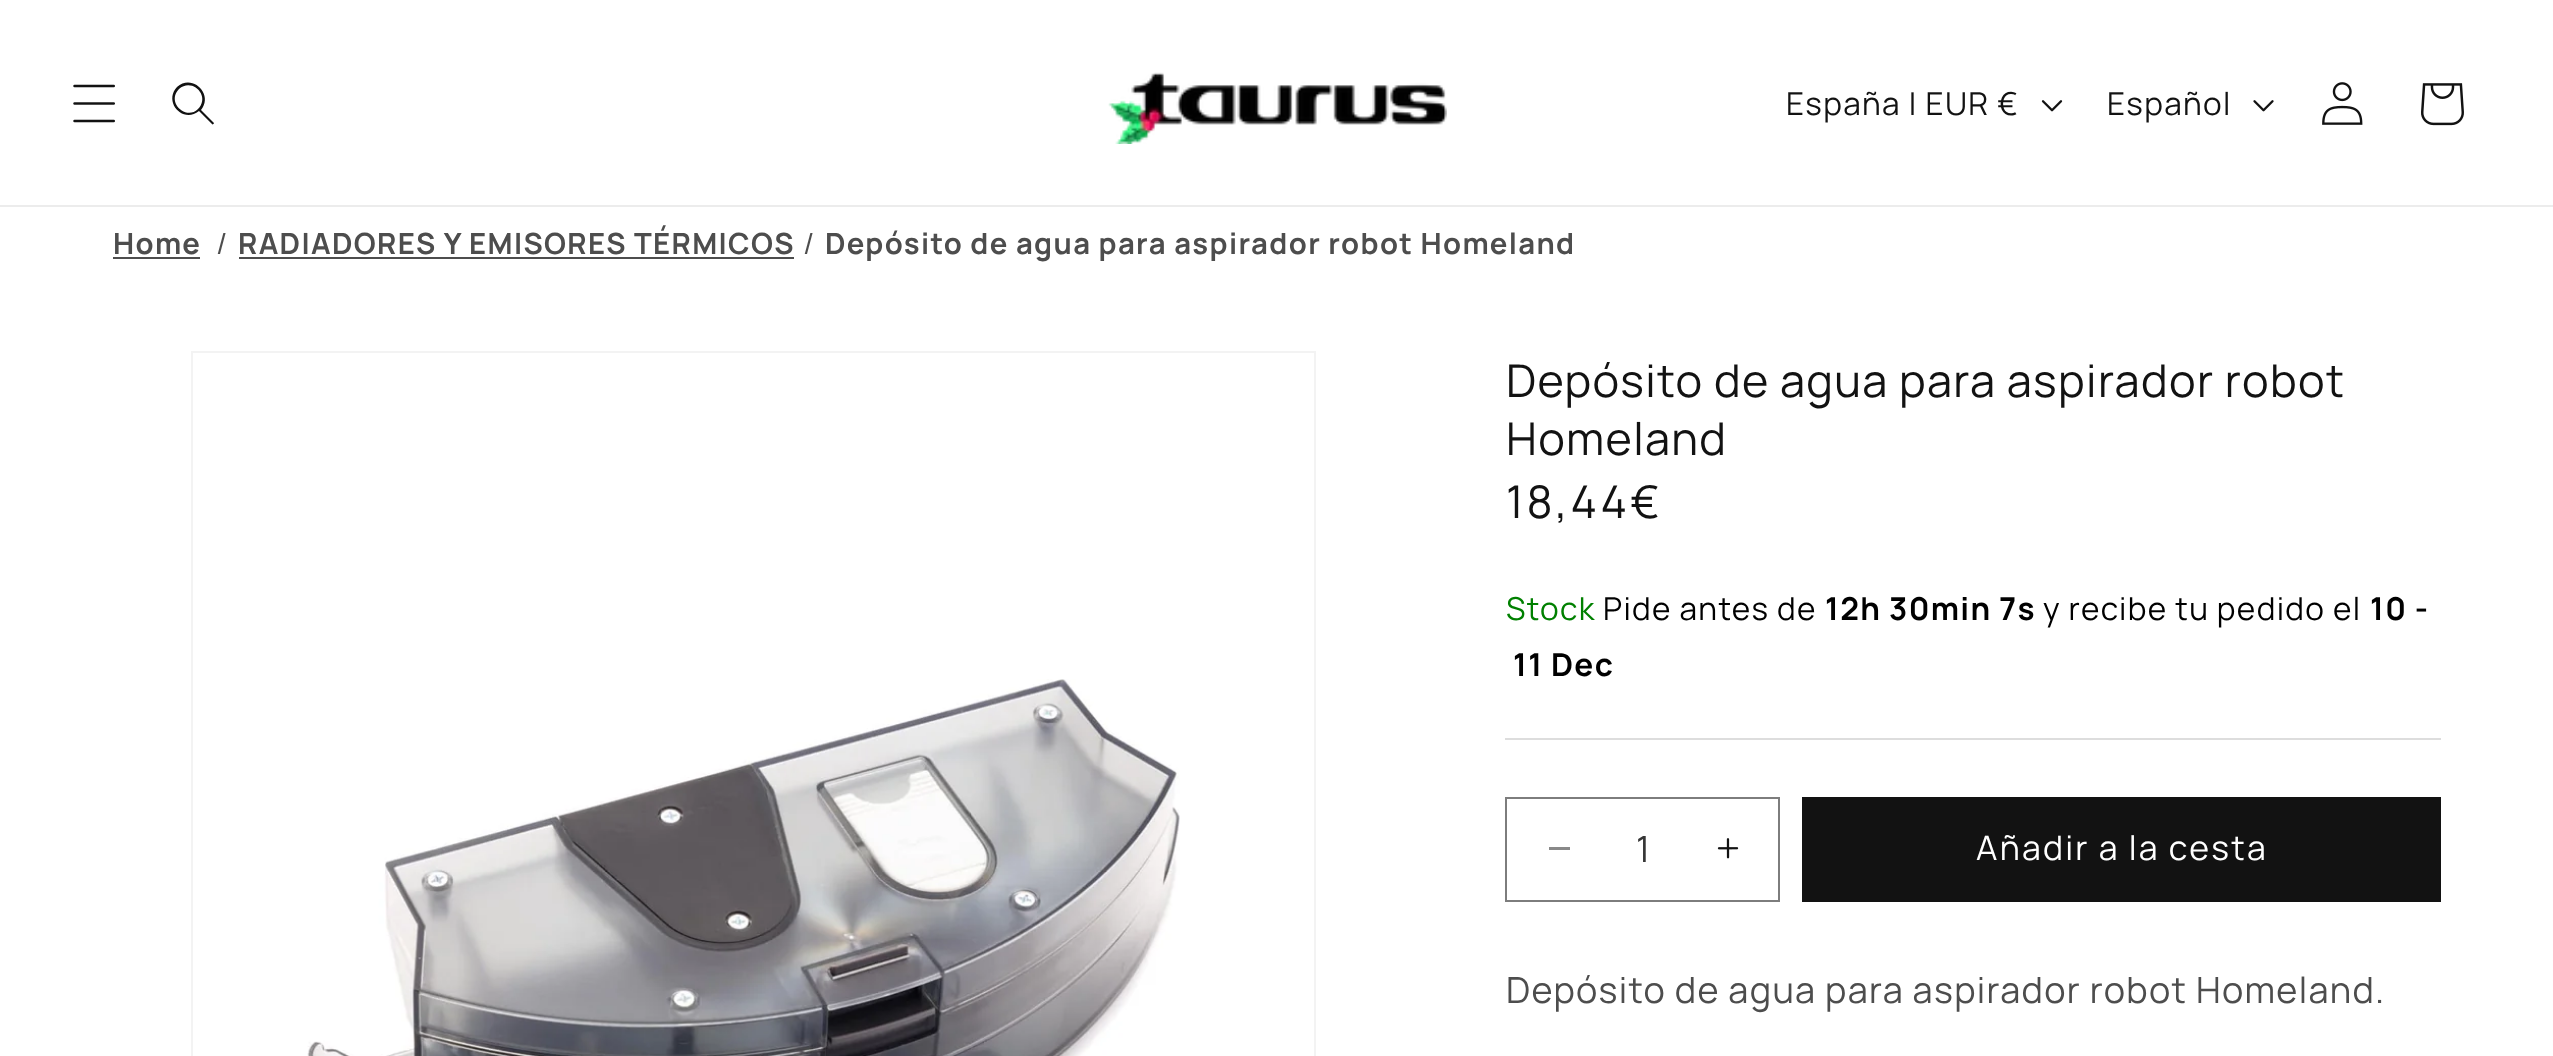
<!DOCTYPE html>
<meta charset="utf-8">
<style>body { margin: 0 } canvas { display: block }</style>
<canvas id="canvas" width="2553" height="1056"></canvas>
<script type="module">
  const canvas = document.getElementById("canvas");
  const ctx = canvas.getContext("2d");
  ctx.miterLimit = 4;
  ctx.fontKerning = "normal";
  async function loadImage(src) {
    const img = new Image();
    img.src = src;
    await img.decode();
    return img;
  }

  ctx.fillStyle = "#ffffff";
  ctx.fillRect(0, 0, 2553, 1056);
  ctx.fillStyle = "#ececec";
  ctx.fillRect(0, 205, 2553, 2);
  ctx.drawImage(await loadImage("img1.png"), 73, 84, 42, 39);
  ctx.fillStyle = "#121212";
  ctx.beginPath();
  ctx.moveTo(198, 109);
  ctx.bezierCurveTo(186, 121, 166, 102, 179, 89);
  ctx.bezierCurveTo(192, 77, 211, 96, 198, 109);
  ctx.moveTo(199, 111);
  ctx.bezierCurveTo(183, 124, 163, 102, 177, 87);
  ctx.bezierCurveTo(192, 73, 214, 94, 201, 110);
  ctx.lineTo(214, 123);
  ctx.bezierCurveTo(214, 124, 212, 125, 212, 124);
  ctx.closePath();
  ctx.fill("evenodd");
  ctx.drawImage(await loadImage("img2.png"), 1108, 72, 339, 72);
  ctx.letterSpacing = "1.35px";
  ctx.font = "31.5px Manrope";
  ctx.fillText("España | EUR €", 1786, 115);
  ctx.drawImage(await loadImage("img3.png"), 2041, 100, 22, 12);
  ctx.fillText("Español", 2107, 115);
  ctx.drawImage(await loadImage("img4.png"), 2253, 100, 21, 12);
  ctx.drawImage(await loadImage("img5.png"), 2322, 82, 41, 43);
  ctx.drawImage(await loadImage("img6.png"), 2421, 83, 43, 43);
  ctx.font = "bold 29.25px Manrope";
  ctx.fillStyle = "#4d4d4d";
  ctx.fillText("Home", 113, 254);
  ctx.fillRect(113, 257, 87, 2);
  ctx.font = "29.25px Manrope";
  ctx.fillText("/", 216, 254);
  ctx.font = "bold 29.25px Manrope";
  ctx.fillText("RADIADORES Y EMISORES TÉRMICOS", 238, 254);
  ctx.fillRect(239, 257, 555, 2);
  ctx.font = "29.25px Manrope";
  ctx.fillText("/", 803, 254);
  ctx.font = "bold 29.25px Manrope";
  ctx.fillText("Depósito de agua para aspirador robot Homeland", 825, 254);
  ctx.strokeStyle = "#f3f3f3";
  ctx.lineWidth = 2;
  ctx.strokeRect(192, 352, 1123, 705);
  ctx.drawImage(await loadImage("img7.png"), 307, 679, 873, 377);
  ctx.font = "45px Manrope";
  ctx.fillStyle = "#121212";
  ctx.fillText("Depósito de agua para aspirador robot", 1506, 397);
  ctx.fillText("Homeland", 1506, 455);
  ctx.letterSpacing = "3px";
  ctx.fillText("18,44€", 1506, 518);
  ctx.letterSpacing = "1.35px";
  ctx.font = "31.5px Manrope";
  ctx.fillStyle = "#008000";
  ctx.fillText("Stock", 1506, 620);
  ctx.fillStyle = "#000000";
  ctx.fillText("Pide antes de", 1603, 620);
  ctx.font = "bold 31.5px Manrope";
  ctx.fillText("12h 30min 7s", 1825, 620);
  ctx.font = "31.5px Manrope";
  ctx.fillText("y recibe tu pedido el", 2043, 620);
  ctx.font = "bold 31.5px Manrope";
  ctx.fillText("10 -", 2370, 620);
  ctx.fillText("11 Dec", 1513, 676);
  ctx.fillStyle = "#dddddd";
  ctx.fillRect(1505, 738, 936, 2);
  ctx.fillStyle = "#898989";
  ctx.fillRect(1549, 847, 21, 3);
  ctx.drawImage(await loadImage("img8.png"), 1717, 838, 22, 21);
  ctx.strokeStyle = "#7d7d7d";
  ctx.strokeRect(1506, 798, 273, 103);
  ctx.letterSpacing = "0px";
  ctx.font = "36px Manrope";
  ctx.fillStyle = "#363636";
  ctx.fillText("1", 1636, 862);
  ctx.fillStyle = "#121212";
  ctx.fillRect(1802, 797, 639, 105);
  ctx.letterSpacing = "2.25px";
  ctx.font = "33.75px Manrope";
  ctx.fillStyle = "#ffffff";
  ctx.fillText("Añadir a la cesta", 1976, 860);
  ctx.letterSpacing = "1.35px";
  ctx.font = "36px Manrope";
  ctx.fillStyle = "#4d4d4d";
  ctx.fillText("Depósito de agua para aspirador robot Homeland.", 1506, 1003);
</script>
